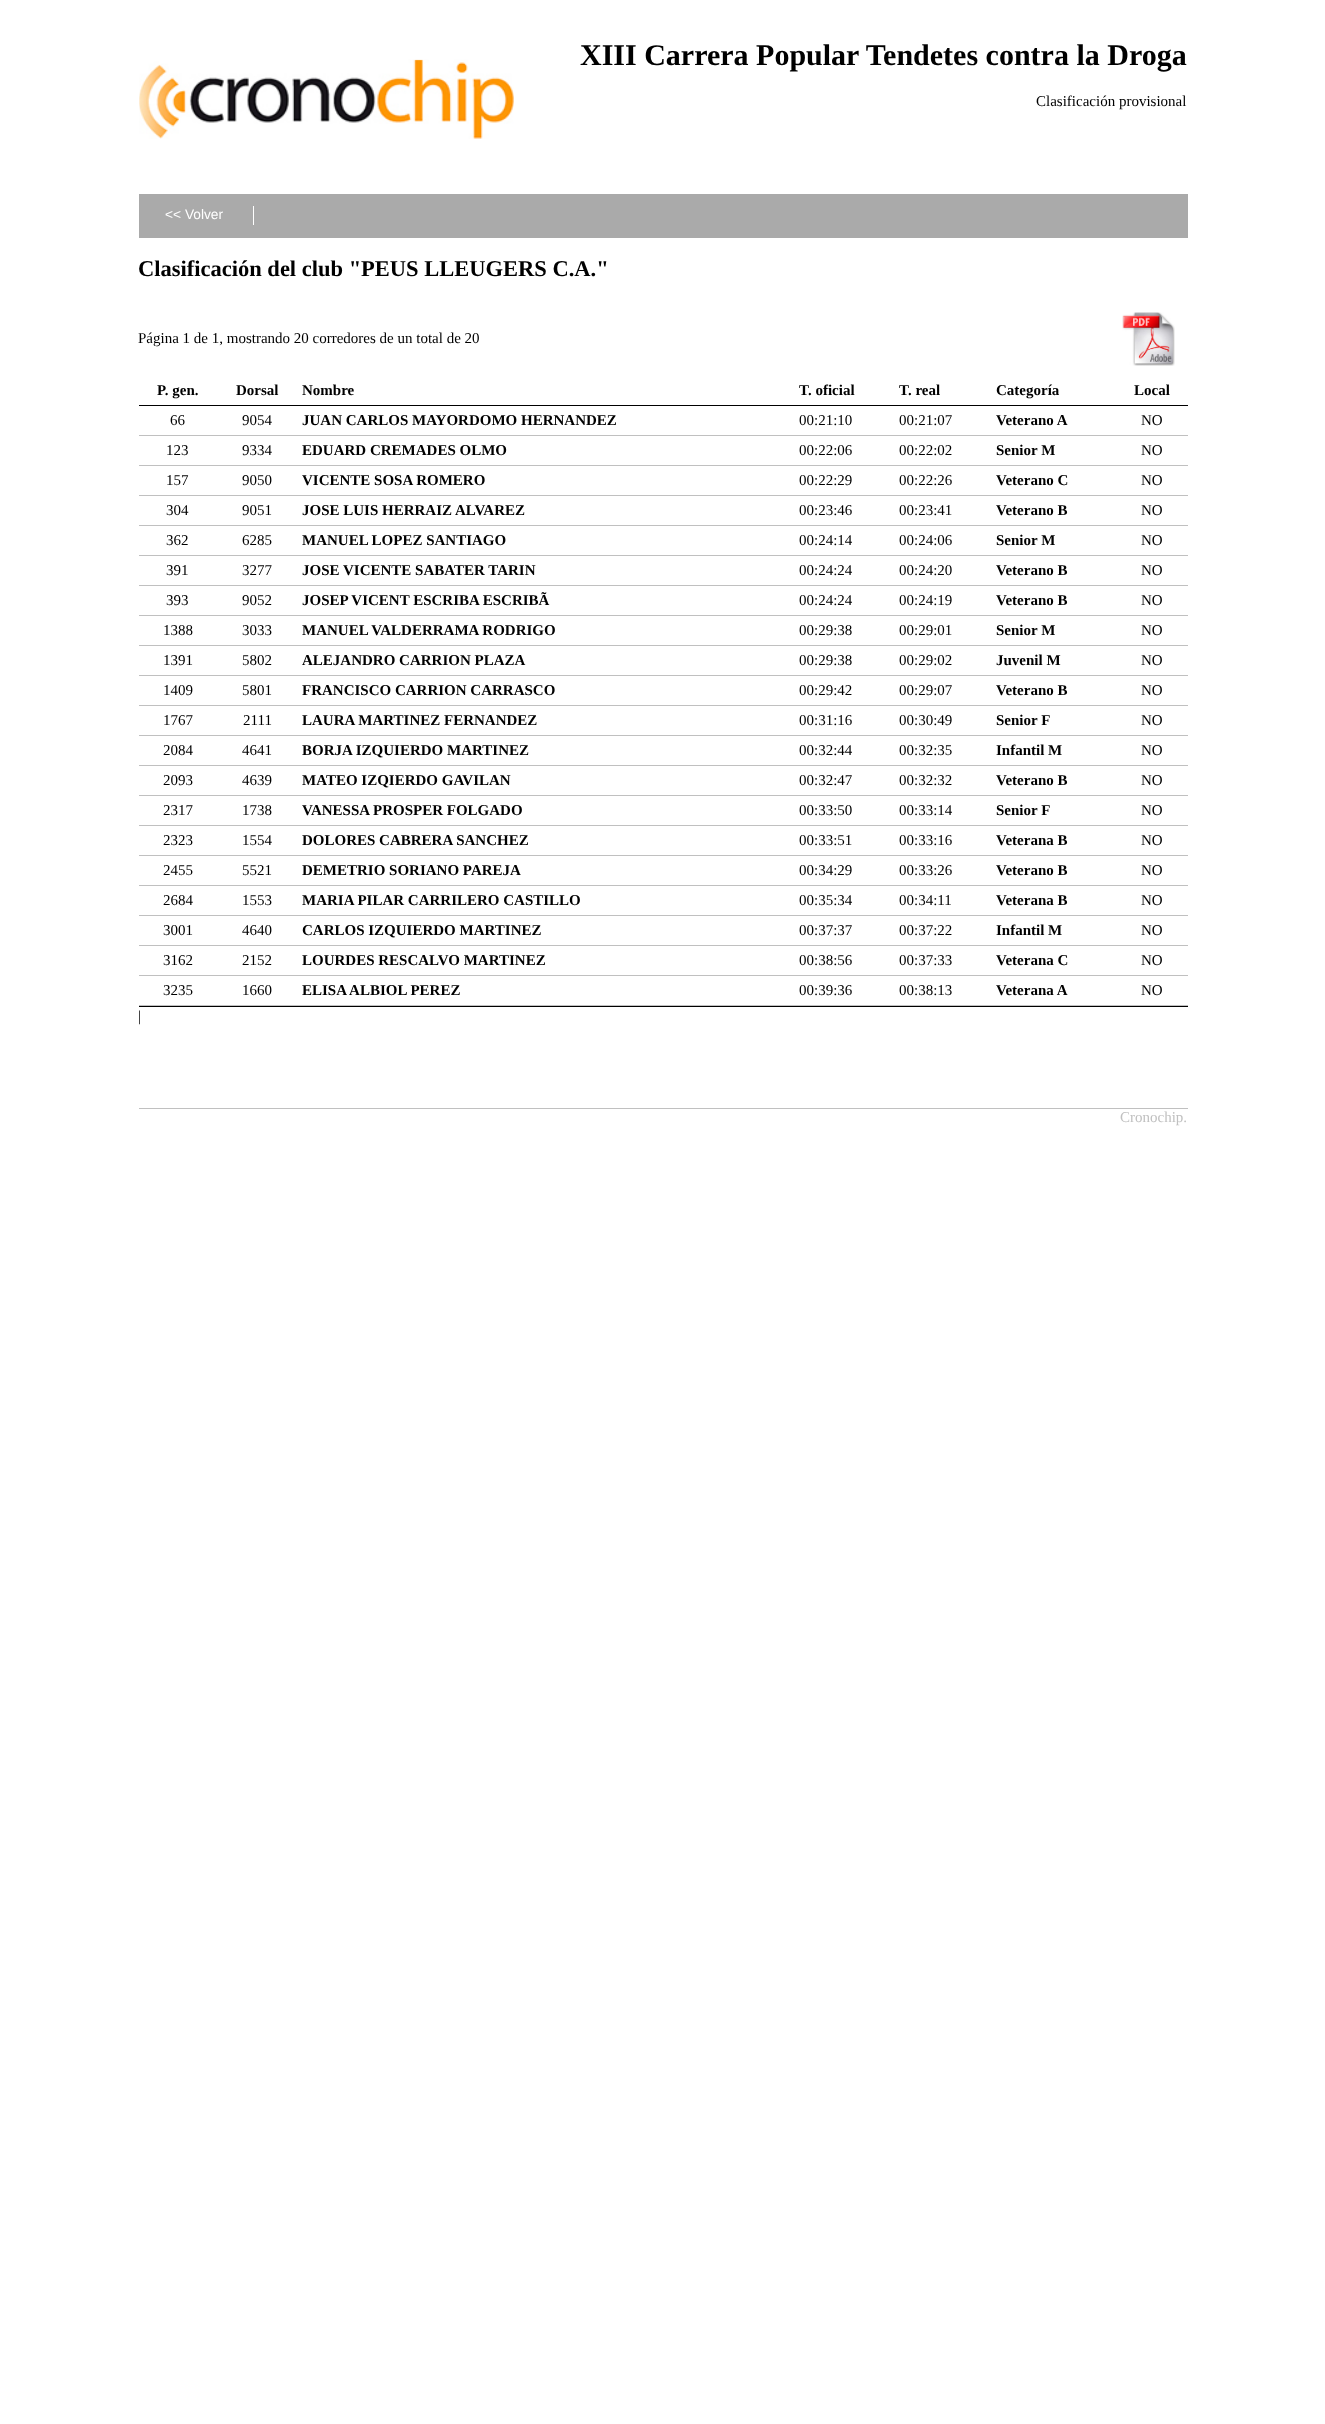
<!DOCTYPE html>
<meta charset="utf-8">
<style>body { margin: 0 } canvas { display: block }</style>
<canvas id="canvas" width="1325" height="2424"></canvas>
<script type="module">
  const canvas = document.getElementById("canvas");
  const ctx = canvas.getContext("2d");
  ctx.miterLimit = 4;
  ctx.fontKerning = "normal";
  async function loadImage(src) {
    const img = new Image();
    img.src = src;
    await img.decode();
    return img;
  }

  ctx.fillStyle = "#ffffff";
  ctx.fillRect(0, 0, 1325, 2424);
  ctx.drawImage(await loadImage("img1.png"), 139, 59, 375, 80);
  ctx.font = "bold 30px Liberation Serif";
  ctx.fillStyle = "#000000";
  ctx.fillText("XIII Carrera Popular Tendetes contra la Droga", 580, 65);
  ctx.font = "15px Liberation Serif";
  ctx.fillText("Clasificación provisional", 1036, 106);
  ctx.fillStyle = "#aaaaaa";
  ctx.fillRect(139, 194, 1049, 44);
  ctx.font = "13.75px Liberation Sans";
  ctx.fillStyle = "#ffffff";
  ctx.fillText("<< Volver", 165, 219);
  ctx.fillRect(253, 206, 1, 19);
  ctx.font = "bold 22.5px Liberation Serif";
  ctx.fillStyle = "#000000";
  ctx.fillText("Clasificación del club \"PEUS LLEUGERS C.A.\"", 138, 276);
  ctx.font = "15px Liberation Serif";
  ctx.fillText("Página 1 de 1, mostrando 20 corredores de un total de 20", 138, 343);
  ctx.drawImage(await loadImage("img2.png"), 1122, 312, 53, 54);
  ctx.fillRect(139, 405, 1049, 1);
  ctx.font = "bold 15px Liberation Serif";
  ctx.fillText("P. gen.", 157, 395);
  ctx.fillText("Dorsal", 236, 395);
  ctx.fillText("Nombre", 302, 395);
  ctx.fillText("T. oficial", 799, 395);
  ctx.fillText("T. real", 899, 395);
  ctx.fillText("Categoría", 996, 395);
  ctx.fillText("Local", 1134, 395);
  ctx.fillStyle = "#c0c0c0";
  ctx.fillRect(139, 435, 1049, 1);
  ctx.font = "15px Liberation Serif";
  ctx.fillStyle = "#000000";
  ctx.fillText("66", 170, 425);
  ctx.fillText("9054", 242, 425);
  ctx.font = "bold 15px Liberation Serif";
  ctx.fillText("JUAN CARLOS MAYORDOMO HERNANDEZ", 302, 425);
  ctx.font = "15px Liberation Serif";
  ctx.fillText("00:21:10", 799, 425);
  ctx.fillText("00:21:07", 899, 425);
  ctx.font = "bold 15px Liberation Serif";
  ctx.fillText("Veterano A", 996, 425);
  ctx.font = "15px Liberation Serif";
  ctx.fillText("NO", 1141, 425);
  ctx.fillStyle = "#c0c0c0";
  ctx.fillRect(139, 465, 1049, 1);
  ctx.fillStyle = "#000000";
  ctx.fillText("123", 166, 455);
  ctx.fillText("9334", 242, 455);
  ctx.font = "bold 15px Liberation Serif";
  ctx.fillText("EDUARD CREMADES OLMO", 302, 455);
  ctx.font = "15px Liberation Serif";
  ctx.fillText("00:22:06", 799, 455);
  ctx.fillText("00:22:02", 899, 455);
  ctx.font = "bold 15px Liberation Serif";
  ctx.fillText("Senior M", 996, 455);
  ctx.font = "15px Liberation Serif";
  ctx.fillText("NO", 1141, 455);
  ctx.fillStyle = "#c0c0c0";
  ctx.fillRect(139, 495, 1049, 1);
  ctx.fillStyle = "#000000";
  ctx.fillText("157", 166, 485);
  ctx.fillText("9050", 242, 485);
  ctx.font = "bold 15px Liberation Serif";
  ctx.fillText("VICENTE SOSA ROMERO", 302, 485);
  ctx.font = "15px Liberation Serif";
  ctx.fillText("00:22:29", 799, 485);
  ctx.fillText("00:22:26", 899, 485);
  ctx.font = "bold 15px Liberation Serif";
  ctx.fillText("Veterano C", 996, 485);
  ctx.font = "15px Liberation Serif";
  ctx.fillText("NO", 1141, 485);
  ctx.fillStyle = "#c0c0c0";
  ctx.fillRect(139, 525, 1049, 1);
  ctx.fillStyle = "#000000";
  ctx.fillText("304", 166, 515);
  ctx.fillText("9051", 242, 515);
  ctx.font = "bold 15px Liberation Serif";
  ctx.fillText("JOSE LUIS HERRAIZ ALVAREZ", 302, 515);
  ctx.font = "15px Liberation Serif";
  ctx.fillText("00:23:46", 799, 515);
  ctx.fillText("00:23:41", 899, 515);
  ctx.font = "bold 15px Liberation Serif";
  ctx.fillText("Veterano B", 996, 515);
  ctx.font = "15px Liberation Serif";
  ctx.fillText("NO", 1141, 515);
  ctx.fillStyle = "#c0c0c0";
  ctx.fillRect(139, 555, 1049, 1);
  ctx.fillStyle = "#000000";
  ctx.fillText("362", 166, 545);
  ctx.fillText("6285", 242, 545);
  ctx.font = "bold 15px Liberation Serif";
  ctx.fillText("MANUEL LOPEZ SANTIAGO", 302, 545);
  ctx.font = "15px Liberation Serif";
  ctx.fillText("00:24:14", 799, 545);
  ctx.fillText("00:24:06", 899, 545);
  ctx.font = "bold 15px Liberation Serif";
  ctx.fillText("Senior M", 996, 545);
  ctx.font = "15px Liberation Serif";
  ctx.fillText("NO", 1141, 545);
  ctx.fillStyle = "#c0c0c0";
  ctx.fillRect(139, 585, 1049, 1);
  ctx.fillStyle = "#000000";
  ctx.fillText("391", 166, 575);
  ctx.fillText("3277", 242, 575);
  ctx.font = "bold 15px Liberation Serif";
  ctx.fillText("JOSE VICENTE SABATER TARIN", 302, 575);
  ctx.font = "15px Liberation Serif";
  ctx.fillText("00:24:24", 799, 575);
  ctx.fillText("00:24:20", 899, 575);
  ctx.font = "bold 15px Liberation Serif";
  ctx.fillText("Veterano B", 996, 575);
  ctx.font = "15px Liberation Serif";
  ctx.fillText("NO", 1141, 575);
  ctx.fillStyle = "#c0c0c0";
  ctx.fillRect(139, 615, 1049, 1);
  ctx.fillStyle = "#000000";
  ctx.fillText("393", 166, 605);
  ctx.fillText("9052", 242, 605);
  ctx.font = "bold 15px Liberation Serif";
  ctx.fillText("JOSEP VICENT ESCRIBA ESCRIBÃ", 302, 605);
  ctx.font = "15px Liberation Serif";
  ctx.fillText("00:24:24", 799, 605);
  ctx.fillText("00:24:19", 899, 605);
  ctx.font = "bold 15px Liberation Serif";
  ctx.fillText("Veterano B", 996, 605);
  ctx.font = "15px Liberation Serif";
  ctx.fillText("NO", 1141, 605);
  ctx.fillStyle = "#c0c0c0";
  ctx.fillRect(139, 645, 1049, 1);
  ctx.fillStyle = "#000000";
  ctx.fillText("1388", 163, 635);
  ctx.fillText("3033", 242, 635);
  ctx.font = "bold 15px Liberation Serif";
  ctx.fillText("MANUEL VALDERRAMA RODRIGO", 302, 635);
  ctx.font = "15px Liberation Serif";
  ctx.fillText("00:29:38", 799, 635);
  ctx.fillText("00:29:01", 899, 635);
  ctx.font = "bold 15px Liberation Serif";
  ctx.fillText("Senior M", 996, 635);
  ctx.font = "15px Liberation Serif";
  ctx.fillText("NO", 1141, 635);
  ctx.fillStyle = "#c0c0c0";
  ctx.fillRect(139, 675, 1049, 1);
  ctx.fillStyle = "#000000";
  ctx.fillText("1391", 163, 665);
  ctx.fillText("5802", 242, 665);
  ctx.font = "bold 15px Liberation Serif";
  ctx.fillText("ALEJANDRO CARRION PLAZA", 302, 665);
  ctx.font = "15px Liberation Serif";
  ctx.fillText("00:29:38", 799, 665);
  ctx.fillText("00:29:02", 899, 665);
  ctx.font = "bold 15px Liberation Serif";
  ctx.fillText("Juvenil M", 996, 665);
  ctx.font = "15px Liberation Serif";
  ctx.fillText("NO", 1141, 665);
  ctx.fillStyle = "#c0c0c0";
  ctx.fillRect(139, 705, 1049, 1);
  ctx.fillStyle = "#000000";
  ctx.fillText("1409", 163, 695);
  ctx.fillText("5801", 242, 695);
  ctx.font = "bold 15px Liberation Serif";
  ctx.fillText("FRANCISCO CARRION CARRASCO", 302, 695);
  ctx.font = "15px Liberation Serif";
  ctx.fillText("00:29:42", 799, 695);
  ctx.fillText("00:29:07", 899, 695);
  ctx.font = "bold 15px Liberation Serif";
  ctx.fillText("Veterano B", 996, 695);
  ctx.font = "15px Liberation Serif";
  ctx.fillText("NO", 1141, 695);
  ctx.fillStyle = "#c0c0c0";
  ctx.fillRect(139, 735, 1049, 1);
  ctx.fillStyle = "#000000";
  ctx.fillText("1767", 163, 725);
  ctx.fillText("2111", 243, 725);
  ctx.font = "bold 15px Liberation Serif";
  ctx.fillText("LAURA MARTINEZ FERNANDEZ", 302, 725);
  ctx.font = "15px Liberation Serif";
  ctx.fillText("00:31:16", 799, 725);
  ctx.fillText("00:30:49", 899, 725);
  ctx.font = "bold 15px Liberation Serif";
  ctx.fillText("Senior F", 996, 725);
  ctx.font = "15px Liberation Serif";
  ctx.fillText("NO", 1141, 725);
  ctx.fillStyle = "#c0c0c0";
  ctx.fillRect(139, 765, 1049, 1);
  ctx.fillStyle = "#000000";
  ctx.fillText("2084", 163, 755);
  ctx.fillText("4641", 242, 755);
  ctx.font = "bold 15px Liberation Serif";
  ctx.fillText("BORJA IZQUIERDO MARTINEZ", 302, 755);
  ctx.font = "15px Liberation Serif";
  ctx.fillText("00:32:44", 799, 755);
  ctx.fillText("00:32:35", 899, 755);
  ctx.font = "bold 15px Liberation Serif";
  ctx.fillText("Infantil M", 996, 755);
  ctx.font = "15px Liberation Serif";
  ctx.fillText("NO", 1141, 755);
  ctx.fillStyle = "#c0c0c0";
  ctx.fillRect(139, 795, 1049, 1);
  ctx.fillStyle = "#000000";
  ctx.fillText("2093", 163, 785);
  ctx.fillText("4639", 242, 785);
  ctx.font = "bold 15px Liberation Serif";
  ctx.fillText("MATEO IZQIERDO GAVILAN", 302, 785);
  ctx.font = "15px Liberation Serif";
  ctx.fillText("00:32:47", 799, 785);
  ctx.fillText("00:32:32", 899, 785);
  ctx.font = "bold 15px Liberation Serif";
  ctx.fillText("Veterano B", 996, 785);
  ctx.font = "15px Liberation Serif";
  ctx.fillText("NO", 1141, 785);
  ctx.fillStyle = "#c0c0c0";
  ctx.fillRect(139, 825, 1049, 1);
  ctx.fillStyle = "#000000";
  ctx.fillText("2317", 163, 815);
  ctx.fillText("1738", 242, 815);
  ctx.font = "bold 15px Liberation Serif";
  ctx.fillText("VANESSA PROSPER FOLGADO", 302, 815);
  ctx.font = "15px Liberation Serif";
  ctx.fillText("00:33:50", 799, 815);
  ctx.fillText("00:33:14", 899, 815);
  ctx.font = "bold 15px Liberation Serif";
  ctx.fillText("Senior F", 996, 815);
  ctx.font = "15px Liberation Serif";
  ctx.fillText("NO", 1141, 815);
  ctx.fillStyle = "#c0c0c0";
  ctx.fillRect(139, 855, 1049, 1);
  ctx.fillStyle = "#000000";
  ctx.fillText("2323", 163, 845);
  ctx.fillText("1554", 242, 845);
  ctx.font = "bold 15px Liberation Serif";
  ctx.fillText("DOLORES CABRERA SANCHEZ", 302, 845);
  ctx.font = "15px Liberation Serif";
  ctx.fillText("00:33:51", 799, 845);
  ctx.fillText("00:33:16", 899, 845);
  ctx.font = "bold 15px Liberation Serif";
  ctx.fillText("Veterana B", 996, 845);
  ctx.font = "15px Liberation Serif";
  ctx.fillText("NO", 1141, 845);
  ctx.fillStyle = "#c0c0c0";
  ctx.fillRect(139, 885, 1049, 1);
  ctx.fillStyle = "#000000";
  ctx.fillText("2455", 163, 875);
  ctx.fillText("5521", 242, 875);
  ctx.font = "bold 15px Liberation Serif";
  ctx.fillText("DEMETRIO SORIANO PAREJA", 302, 875);
  ctx.font = "15px Liberation Serif";
  ctx.fillText("00:34:29", 799, 875);
  ctx.fillText("00:33:26", 899, 875);
  ctx.font = "bold 15px Liberation Serif";
  ctx.fillText("Veterano B", 996, 875);
  ctx.font = "15px Liberation Serif";
  ctx.fillText("NO", 1141, 875);
  ctx.fillStyle = "#c0c0c0";
  ctx.fillRect(139, 915, 1049, 1);
  ctx.fillStyle = "#000000";
  ctx.fillText("2684", 163, 905);
  ctx.fillText("1553", 242, 905);
  ctx.font = "bold 15px Liberation Serif";
  ctx.fillText("MARIA PILAR CARRILERO CASTILLO", 302, 905);
  ctx.font = "15px Liberation Serif";
  ctx.fillText("00:35:34", 799, 905);
  ctx.fillText("00:34:11", 899, 905);
  ctx.font = "bold 15px Liberation Serif";
  ctx.fillText("Veterana B", 996, 905);
  ctx.font = "15px Liberation Serif";
  ctx.fillText("NO", 1141, 905);
  ctx.fillStyle = "#c0c0c0";
  ctx.fillRect(139, 945, 1049, 1);
  ctx.fillStyle = "#000000";
  ctx.fillText("3001", 163, 935);
  ctx.fillText("4640", 242, 935);
  ctx.font = "bold 15px Liberation Serif";
  ctx.fillText("CARLOS IZQUIERDO MARTINEZ", 302, 935);
  ctx.font = "15px Liberation Serif";
  ctx.fillText("00:37:37", 799, 935);
  ctx.fillText("00:37:22", 899, 935);
  ctx.font = "bold 15px Liberation Serif";
  ctx.fillText("Infantil M", 996, 935);
  ctx.font = "15px Liberation Serif";
  ctx.fillText("NO", 1141, 935);
  ctx.fillStyle = "#c0c0c0";
  ctx.fillRect(139, 975, 1049, 1);
  ctx.fillStyle = "#000000";
  ctx.fillText("3162", 163, 965);
  ctx.fillText("2152", 242, 965);
  ctx.font = "bold 15px Liberation Serif";
  ctx.fillText("LOURDES RESCALVO MARTINEZ", 302, 965);
  ctx.font = "15px Liberation Serif";
  ctx.fillText("00:38:56", 799, 965);
  ctx.fillText("00:37:33", 899, 965);
  ctx.font = "bold 15px Liberation Serif";
  ctx.fillText("Veterana C", 996, 965);
  ctx.font = "15px Liberation Serif";
  ctx.fillText("NO", 1141, 965);
  ctx.fillStyle = "#c0c0c0";
  ctx.fillRect(139, 1005, 1049, 1);
  ctx.fillStyle = "#000000";
  ctx.fillText("3235", 163, 995);
  ctx.fillText("1660", 242, 995);
  ctx.font = "bold 15px Liberation Serif";
  ctx.fillText("ELISA ALBIOL PEREZ", 302, 995);
  ctx.font = "15px Liberation Serif";
  ctx.fillText("00:39:36", 799, 995);
  ctx.fillText("00:38:13", 899, 995);
  ctx.font = "bold 15px Liberation Serif";
  ctx.fillText("Veterana A", 996, 995);
  ctx.font = "15px Liberation Serif";
  ctx.fillText("NO", 1141, 995);
  ctx.fillRect(139, 1006, 1049, 1);
  ctx.fillText("|", 138, 1021);
  ctx.fillStyle = "#c0c0c0";
  ctx.fillRect(139, 1108, 1049, 1);
  ctx.fillText("Cronochip.", 1120, 1122);
</script>
